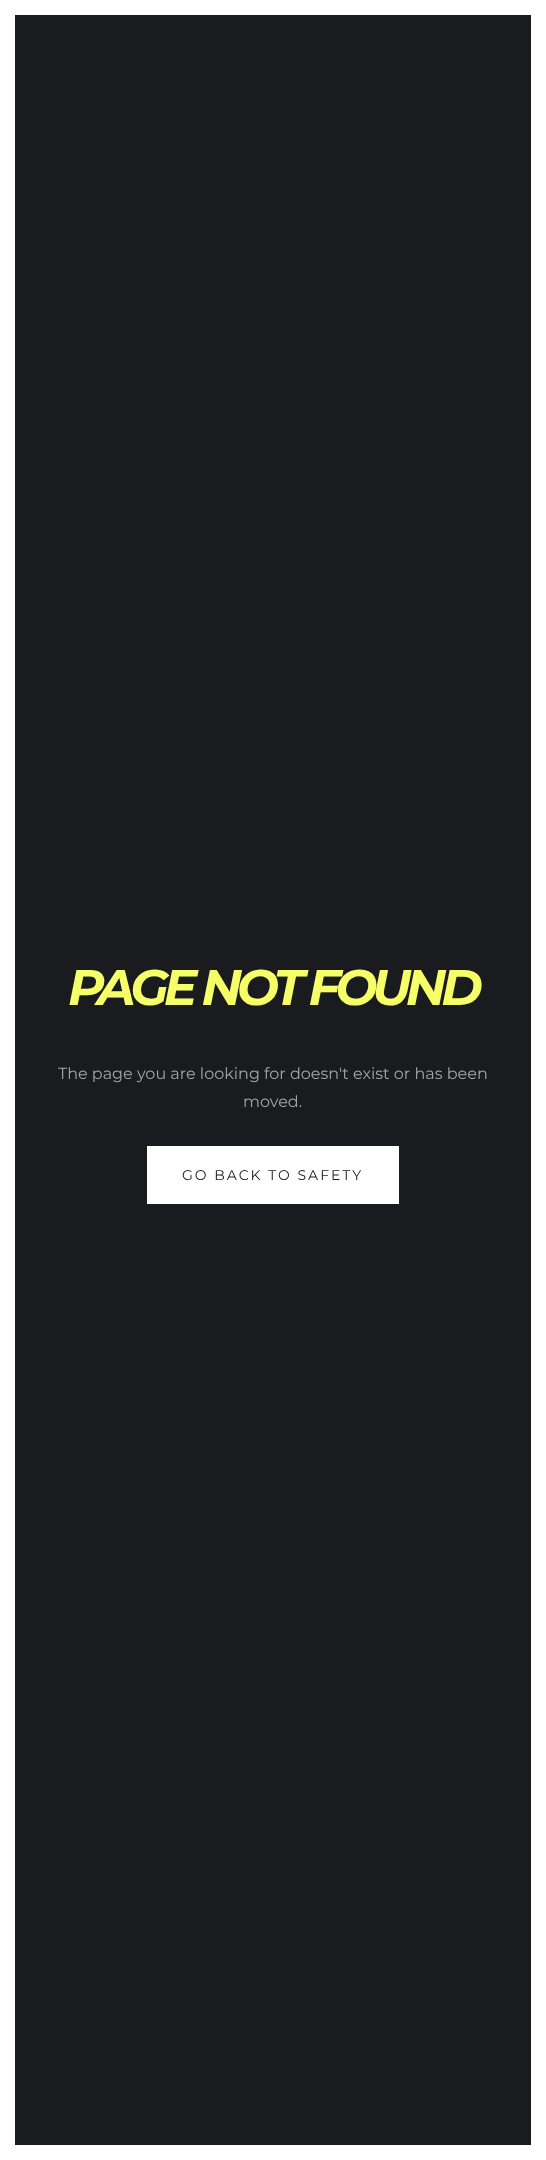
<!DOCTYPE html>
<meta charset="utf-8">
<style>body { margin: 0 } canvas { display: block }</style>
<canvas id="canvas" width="546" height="2160"></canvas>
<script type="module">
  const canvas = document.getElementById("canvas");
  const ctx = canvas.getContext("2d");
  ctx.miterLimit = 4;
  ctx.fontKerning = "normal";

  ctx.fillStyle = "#ffffff";
  ctx.fillRect(0, 0, 546, 2160);
  ctx.fillStyle = "#1a1b1f";
  ctx.fillRect(15, 15, 516, 2130);
  ctx.letterSpacing = "-5px";
  ctx.font = "italic bold 50px Montserrat";
  ctx.fillStyle = "#f6ff68";
  ctx.fillText("PAGE NOT FOUND", 68, 1005);
  ctx.letterSpacing = "0px";
  ctx.font = "16px Montserrat";
  ctx.fillStyle = "#a3a4a5";
  ctx.fillText("The page you are looking for doesn't exist or has been", 58, 1079);
  ctx.fillText("moved.", 243, 1107);
  ctx.fillStyle = "#ffffff";
  ctx.fillRect(147, 1146, 252, 58);
  ctx.letterSpacing = "2px";
  ctx.font = "14px Montserrat";
  ctx.fillStyle = "#202020";
  ctx.fillText("GO BACK TO SAFETY", 182, 1180);
</script>
